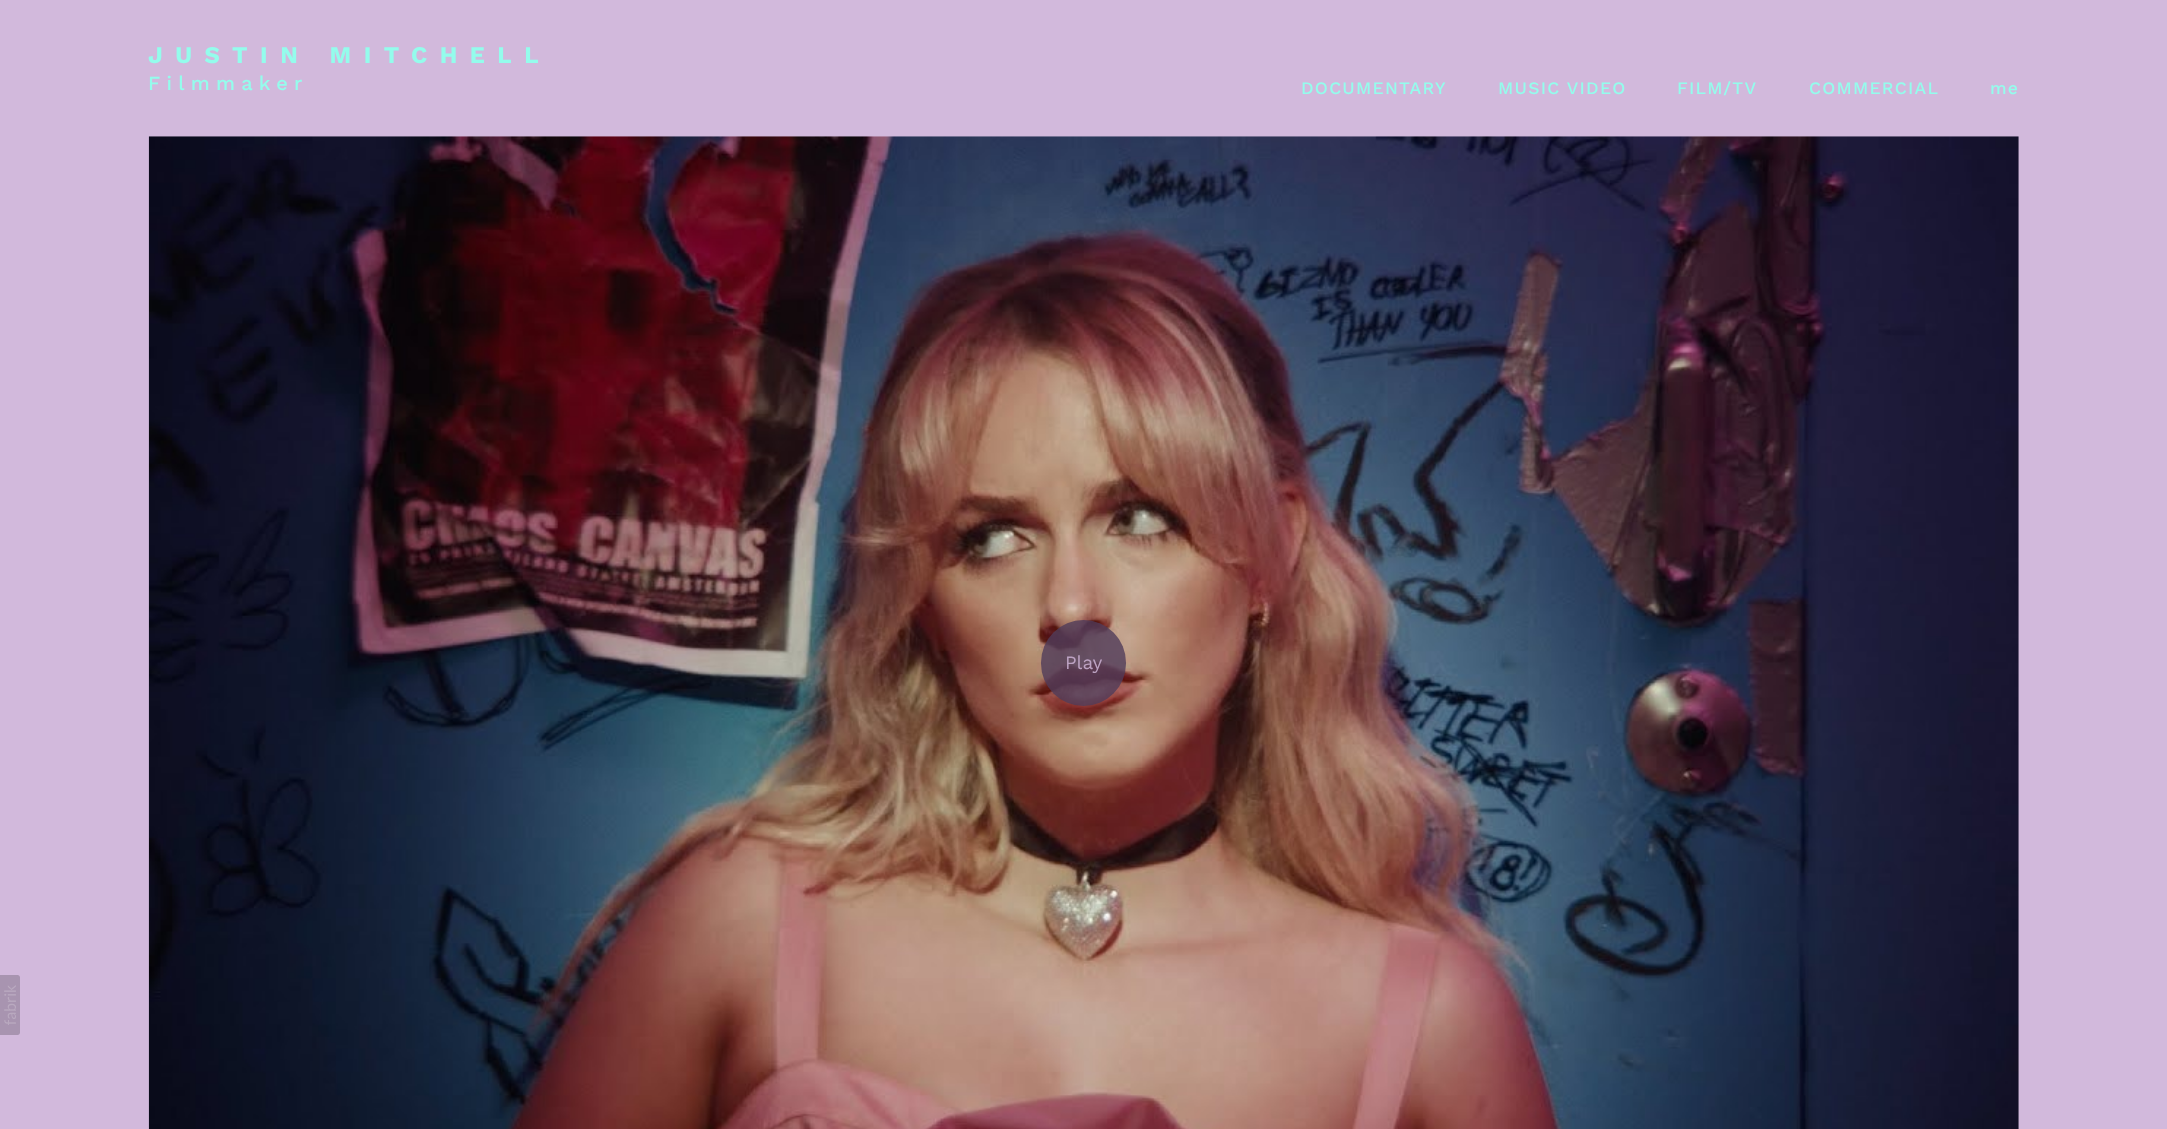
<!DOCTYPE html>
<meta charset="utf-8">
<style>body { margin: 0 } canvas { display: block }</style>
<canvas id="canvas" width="2167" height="1129"></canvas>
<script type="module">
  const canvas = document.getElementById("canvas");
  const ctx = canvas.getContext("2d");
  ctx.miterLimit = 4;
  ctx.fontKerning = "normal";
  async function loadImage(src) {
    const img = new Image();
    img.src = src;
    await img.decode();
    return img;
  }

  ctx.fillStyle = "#d2b9dc";
  ctx.fillRect(0, 0, 2167, 1129);
  ctx.letterSpacing = "12.5px";
  ctx.font = "bold 23.75px Work Sans";
  ctx.fillStyle = "#94fcec";
  ctx.fillText("JUSTIN MITCHELL", 148, 63);
  ctx.letterSpacing = "6.25px";
  ctx.font = "500 20px Work Sans";
  ctx.fillText("Filmmaker", 148, 90);
  ctx.letterSpacing = "1.25px";
  ctx.font = "500 17.5px Work Sans";
  ctx.fillText("DOCUMENTARY", 1301, 94);
  ctx.fillText("MUSIC VIDEO", 1498, 94);
  ctx.fillText("FILM/TV", 1677, 94);
  ctx.fillText("COMMERCIAL", 1809, 94);
  ctx.fillText("me", 1990, 94);
  ctx.fillStyle = "#d7bee1";
  ctx.fillRect(149, 136, 1870, 993);
  ctx.drawImage(await loadImage("img1.png"), 148, 136, 1871, 993);
  ctx.fillStyle = "rgba(80, 60, 90, 0.8)";
  ctx.beginPath();
  ctx.roundRect(1041, 620, 85, 86, 42.5);
  ctx.fill();
  ctx.letterSpacing = "0px";
  ctx.font = "19px Work Sans";
  ctx.fillStyle = "#bca2c2";
  ctx.fillText("Play", 1065, 669);
  ctx.drawImage(await loadImage("img2.png"), 0, 975, 20, 60);
</script>
